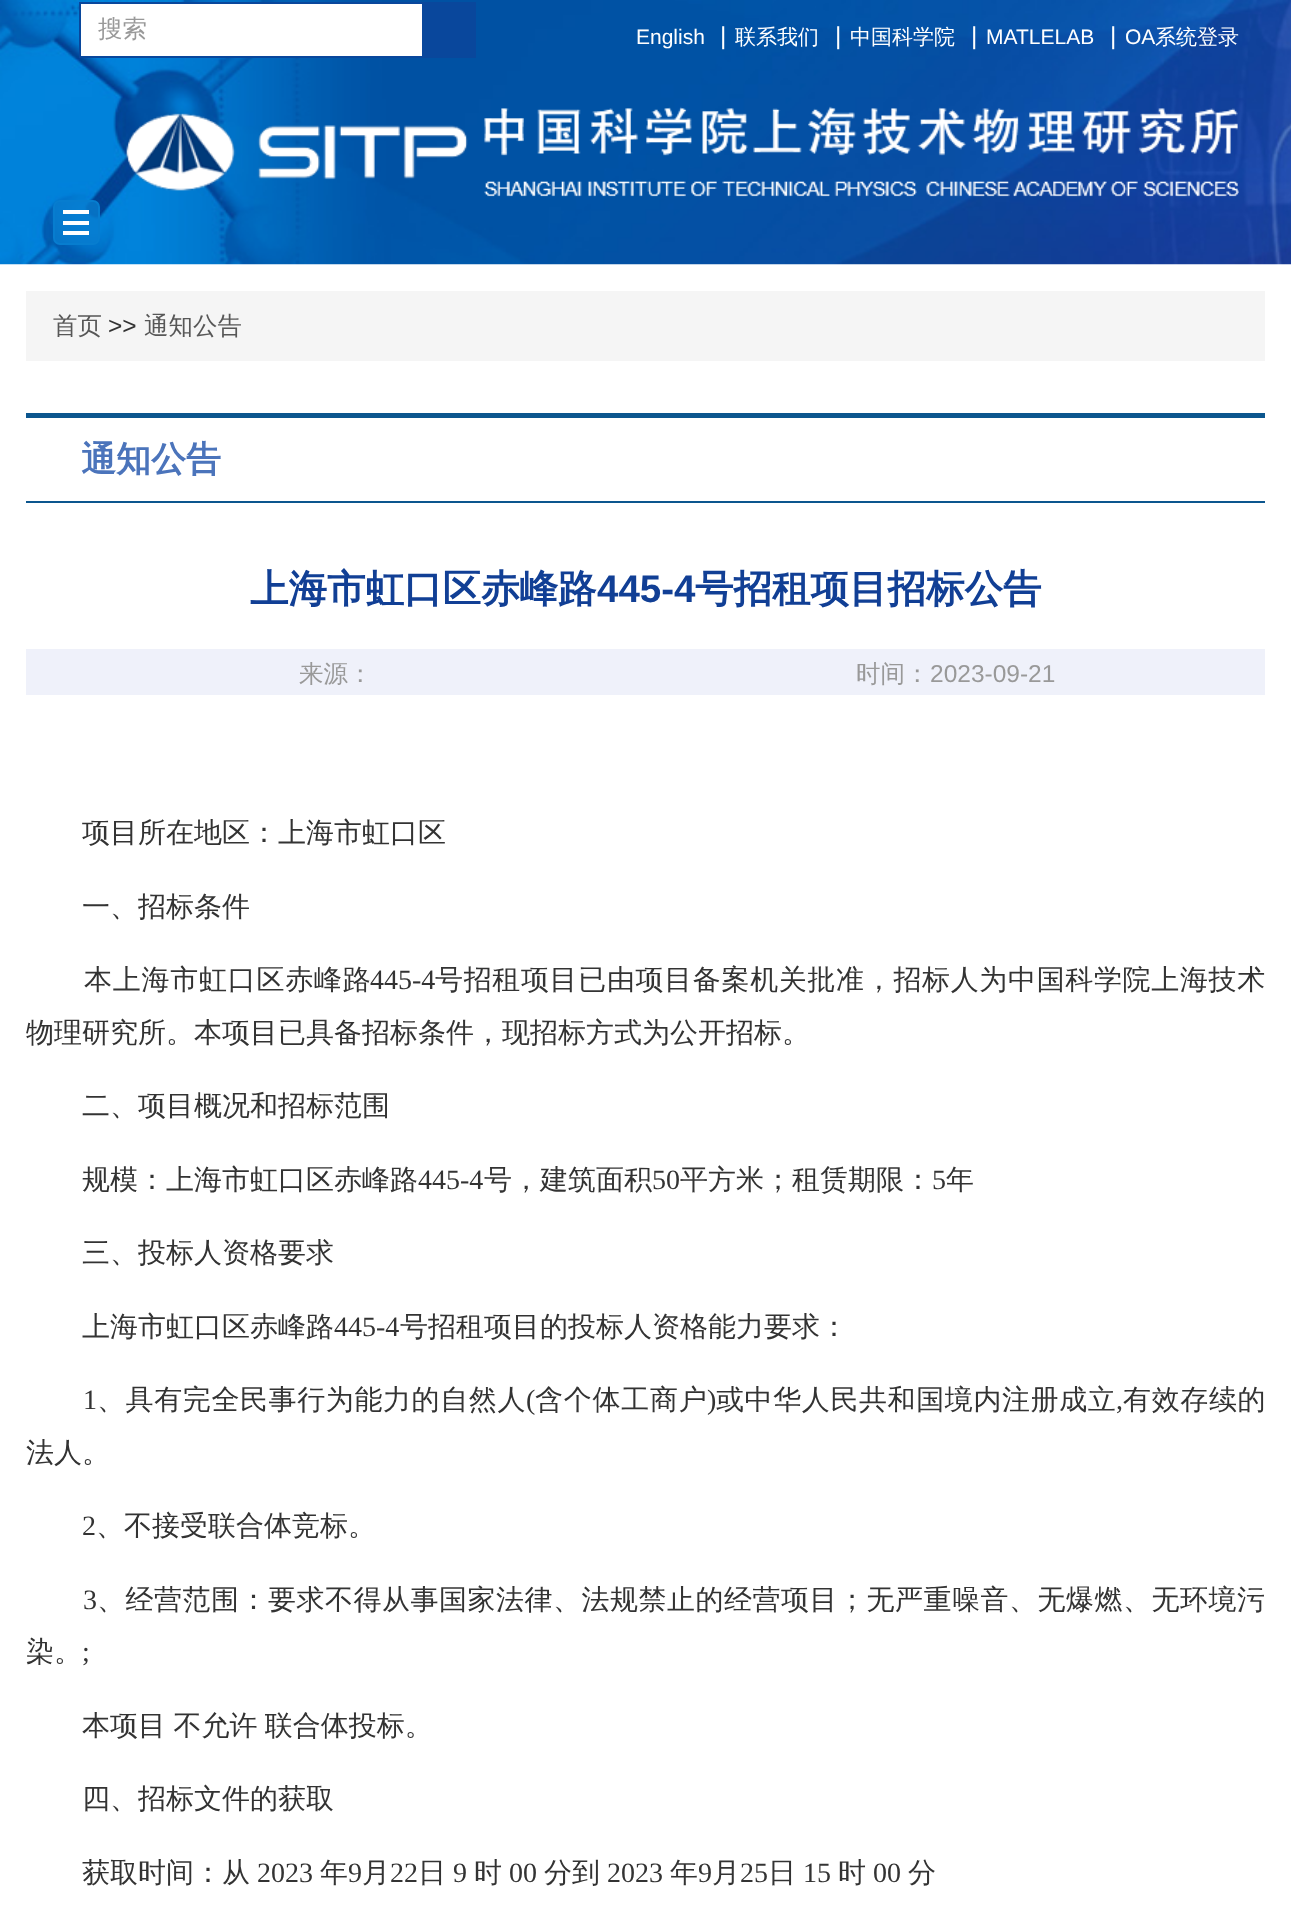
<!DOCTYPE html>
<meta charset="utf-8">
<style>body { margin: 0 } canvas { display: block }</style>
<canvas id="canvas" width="1291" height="1907"></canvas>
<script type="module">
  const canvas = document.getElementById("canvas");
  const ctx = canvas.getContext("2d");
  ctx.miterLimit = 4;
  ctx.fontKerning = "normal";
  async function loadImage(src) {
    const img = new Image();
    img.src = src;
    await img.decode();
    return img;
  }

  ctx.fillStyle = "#ffffff";
  ctx.fillRect(0, 0, 1291, 1907);
  ctx.drawImage(await loadImage("img1.png"), 0, 0, 1291, 265);
  ctx.fillRect(81, 4, 341, 52);
  ctx.strokeStyle = "#09479c";
  ctx.lineWidth = 2;
  ctx.strokeRect(80, 3, 395, 54);
  ctx.font = "500 24.5px WenQuanYi Zen Hei";
  ctx.fillStyle = "#999999";
  ctx.fillText("搜索", 98, 37);
  ctx.fillStyle = "#09479c";
  ctx.fillRect(422, 4, 52, 52);
  ctx.font = "21px Liberation Sans";
  ctx.fillStyle = "#ffffff";
  ctx.fillText("English", 636, 44);
  ctx.font = "24.5px Liberation Sans";
  ctx.fillText("|", 720, 44);
  ctx.font = "500 21px WenQuanYi Zen Hei";
  ctx.fillText("联系我们", 735, 44);
  ctx.font = "24.5px Liberation Sans";
  ctx.fillText("|", 835, 44);
  ctx.font = "500 21px WenQuanYi Zen Hei";
  ctx.fillText("中国科学院", 850, 44);
  ctx.font = "24.5px Liberation Sans";
  ctx.fillText("|", 971, 44);
  ctx.font = "21px Liberation Sans";
  ctx.fillText("MATLELAB", 986, 44);
  ctx.font = "24.5px Liberation Sans";
  ctx.fillText("|", 1110, 44);
  ctx.font = "21px Liberation Sans";
  ctx.fillText("OA", 1125, 44);
  ctx.font = "500 21px WenQuanYi Zen Hei";
  ctx.fillText("系统登录", 1155, 44);
  ctx.drawImage(await loadImage("img2.png"), 126, 106, 1113, 91);
  ctx.fillStyle = "rgba(7, 125, 207, 0.8)";
  ctx.beginPath();
  ctx.roundRect(54, 201, 45, 43, 6);
  ctx.fill();
  ctx.strokeStyle = "#077dcf";
  ctx.stroke();
  ctx.fillStyle = "#ffffff";
  ctx.fillRect(63, 210, 26, 4);
  ctx.fillRect(63, 221, 26, 4);
  ctx.fillRect(63, 231, 26, 4);
  ctx.fillStyle = "#f5f5f5";
  ctx.fillRect(26, 291, 1239, 70);
  ctx.font = "500 24.5px WenQuanYi Zen Hei";
  ctx.fillStyle = "#575757";
  ctx.fillText("首页", 53, 334);
  ctx.font = "24.5px Liberation Sans";
  ctx.fillStyle = "#333333";
  ctx.fillText(">>", 108, 334);
  ctx.font = "500 24.5px WenQuanYi Zen Hei";
  ctx.fillStyle = "#575757";
  ctx.fillText("通知公告", 144, 334);
  ctx.fillStyle = "#0c568e";
  ctx.fillRect(26, 413, 1239, 5);
  ctx.fillRect(26, 501, 1239, 2);
  ctx.font = "bold 35px WenQuanYi Zen Hei";
  ctx.fillStyle = "#4b74bb";
  ctx.fillText("通知公告", 81, 471);
  ctx.font = "bold 38.5px WenQuanYi Zen Hei";
  ctx.fillStyle = "#113f95";
  ctx.fillText("上海市虹口区赤峰路", 250, 602);
  ctx.font = "bold 38.5px Liberation Sans";
  ctx.fillText("445-4", 597, 602);
  ctx.font = "bold 38.5px WenQuanYi Zen Hei";
  ctx.fillText("号招租项目招标公告", 695, 602);
  ctx.fillStyle = "#eff1fa";
  ctx.fillRect(26, 649, 1239, 46);
  ctx.font = "500 24.5px WenQuanYi Zen Hei";
  ctx.fillStyle = "#999999";
  ctx.fillText("来源：", 299, 682);
  ctx.fillText("时间：", 856, 682);
  ctx.font = "24.5px Liberation Sans";
  ctx.fillText("2023-09-21", 930, 682);
  ctx.font = "500 28px WenQuanYi Zen Hei";
  ctx.fillStyle = "#333333";
  ctx.fillText("项目所在地区：上海市虹口区", 82, 842);
  ctx.fillText("一、招标条件", 82, 916);
  ctx.letterSpacing = "0.75px";
  ctx.fillText("本上海市虹口区赤峰路", 84, 989);
  ctx.letterSpacing = "0px";
  ctx.font = "28px Liberation Serif";
  ctx.fillText("445-4", 370, 989);
  ctx.letterSpacing = "0.65px";
  ctx.font = "500 28px WenQuanYi Zen Hei";
  ctx.fillText("号招租项目已由项目备案机关批准，招标人为中国科学院上海技术", 435, 989);
  ctx.letterSpacing = "0px";
  ctx.fillText("物理研究所。本项目已具备招标条件，现招标方式为公开招标。", 26, 1042);
  ctx.fillText("二、项目概况和招标范围", 82, 1115);
  ctx.fillText("规模：上海市虹口区赤峰路", 82, 1189);
  ctx.font = "28px Liberation Serif";
  ctx.fillText("445-4", 418, 1189);
  ctx.font = "500 28px WenQuanYi Zen Hei";
  ctx.fillText("号，建筑面积", 484, 1189);
  ctx.font = "28px Liberation Serif";
  ctx.fillText("50", 652, 1189);
  ctx.font = "500 28px WenQuanYi Zen Hei";
  ctx.fillText("平方米；租赁期限：", 680, 1189);
  ctx.font = "28px Liberation Serif";
  ctx.fillText("5", 932, 1189);
  ctx.font = "500 28px WenQuanYi Zen Hei";
  ctx.fillText("年", 946, 1189);
  ctx.fillText("三、投标人资格要求", 82, 1262);
  ctx.fillText("上海市虹口区赤峰路", 82, 1336);
  ctx.font = "28px Liberation Serif";
  ctx.fillText("445-4", 334, 1336);
  ctx.font = "500 28px WenQuanYi Zen Hei";
  ctx.fillText("号招租项目的投标人资格能力要求：", 400, 1336);
  ctx.font = "28px Liberation Serif";
  ctx.fillText("1", 83, 1409);
  ctx.letterSpacing = "0.6px";
  ctx.font = "500 28px WenQuanYi Zen Hei";
  ctx.fillText("、具有完全民事行为能力的自然人", 97, 1409);
  ctx.letterSpacing = "0px";
  ctx.font = "28px Liberation Serif";
  ctx.fillText("(", 526, 1409);
  ctx.letterSpacing = "0.75px";
  ctx.font = "500 28px WenQuanYi Zen Hei";
  ctx.fillText("含个体工商户", 535, 1409);
  ctx.letterSpacing = "0px";
  ctx.font = "28px Liberation Serif";
  ctx.fillText(")", 707, 1409);
  ctx.letterSpacing = "0.6px";
  ctx.font = "500 28px WenQuanYi Zen Hei";
  ctx.fillText("或中华人民共和国境内注册成立", 716, 1409);
  ctx.letterSpacing = "0.65px";
  ctx.fillText("有效存续的", 1123, 1409);
  ctx.letterSpacing = "0px";
  ctx.font = "28px Liberation Serif";
  ctx.fillText(",", 1116, 1409);
  ctx.font = "500 28px WenQuanYi Zen Hei";
  ctx.fillText("法人。", 26, 1462);
  ctx.font = "28px Liberation Serif";
  ctx.fillText("2", 82, 1535);
  ctx.font = "500 28px WenQuanYi Zen Hei";
  ctx.fillText("、不接受联合体竞标。", 96, 1535);
  ctx.font = "28px Liberation Serif";
  ctx.fillText("3", 83, 1609);
  ctx.letterSpacing = "0.5px";
  ctx.font = "500 28px WenQuanYi Zen Hei";
  ctx.fillText("、经营范围：要求不得从事国家法律、法规禁止的经营项目；无严重噪音、无爆燃、无环境污", 97, 1609);
  ctx.letterSpacing = "0px";
  ctx.fillText("染。", 26, 1661);
  ctx.font = "28px Liberation Serif";
  ctx.fillText(";", 82, 1661);
  ctx.wordSpacing = "-1px";
  ctx.font = "500 28px WenQuanYi Zen Hei";
  ctx.fillText("本项目 不允许 联合体投标。", 82, 1735);
  ctx.wordSpacing = "0px";
  ctx.fillText("四、招标文件的获取", 82, 1808);
  ctx.fillText("获取时间：从", 82, 1882);
  ctx.font = "28px Liberation Serif";
  ctx.fillText("2023", 257, 1882);
  ctx.font = "500 28px WenQuanYi Zen Hei";
  ctx.fillText("年", 320, 1882);
  ctx.font = "28px Liberation Serif";
  ctx.fillText("9", 348, 1882);
  ctx.font = "500 28px WenQuanYi Zen Hei";
  ctx.fillText("月", 362, 1882);
  ctx.font = "28px Liberation Serif";
  ctx.fillText("22", 390, 1882);
  ctx.font = "500 28px WenQuanYi Zen Hei";
  ctx.fillText("日", 418, 1882);
  ctx.font = "28px Liberation Serif";
  ctx.fillText("9", 453, 1882);
  ctx.font = "500 28px WenQuanYi Zen Hei";
  ctx.fillText("时", 474, 1882);
  ctx.font = "28px Liberation Serif";
  ctx.fillText("00", 509, 1882);
  ctx.font = "500 28px WenQuanYi Zen Hei";
  ctx.fillText("分到", 544, 1882);
  ctx.font = "28px Liberation Serif";
  ctx.fillText("2023", 607, 1882);
  ctx.font = "500 28px WenQuanYi Zen Hei";
  ctx.fillText("年", 670, 1882);
  ctx.font = "28px Liberation Serif";
  ctx.fillText("9", 698, 1882);
  ctx.font = "500 28px WenQuanYi Zen Hei";
  ctx.fillText("月", 712, 1882);
  ctx.font = "28px Liberation Serif";
  ctx.fillText("25", 740, 1882);
  ctx.font = "500 28px WenQuanYi Zen Hei";
  ctx.fillText("日", 768, 1882);
  ctx.font = "28px Liberation Serif";
  ctx.fillText("15", 803, 1882);
  ctx.font = "500 28px WenQuanYi Zen Hei";
  ctx.fillText("时", 838, 1882);
  ctx.font = "28px Liberation Serif";
  ctx.fillText("00", 873, 1882);
  ctx.font = "500 28px WenQuanYi Zen Hei";
  ctx.fillText("分", 908, 1882);
</script>
